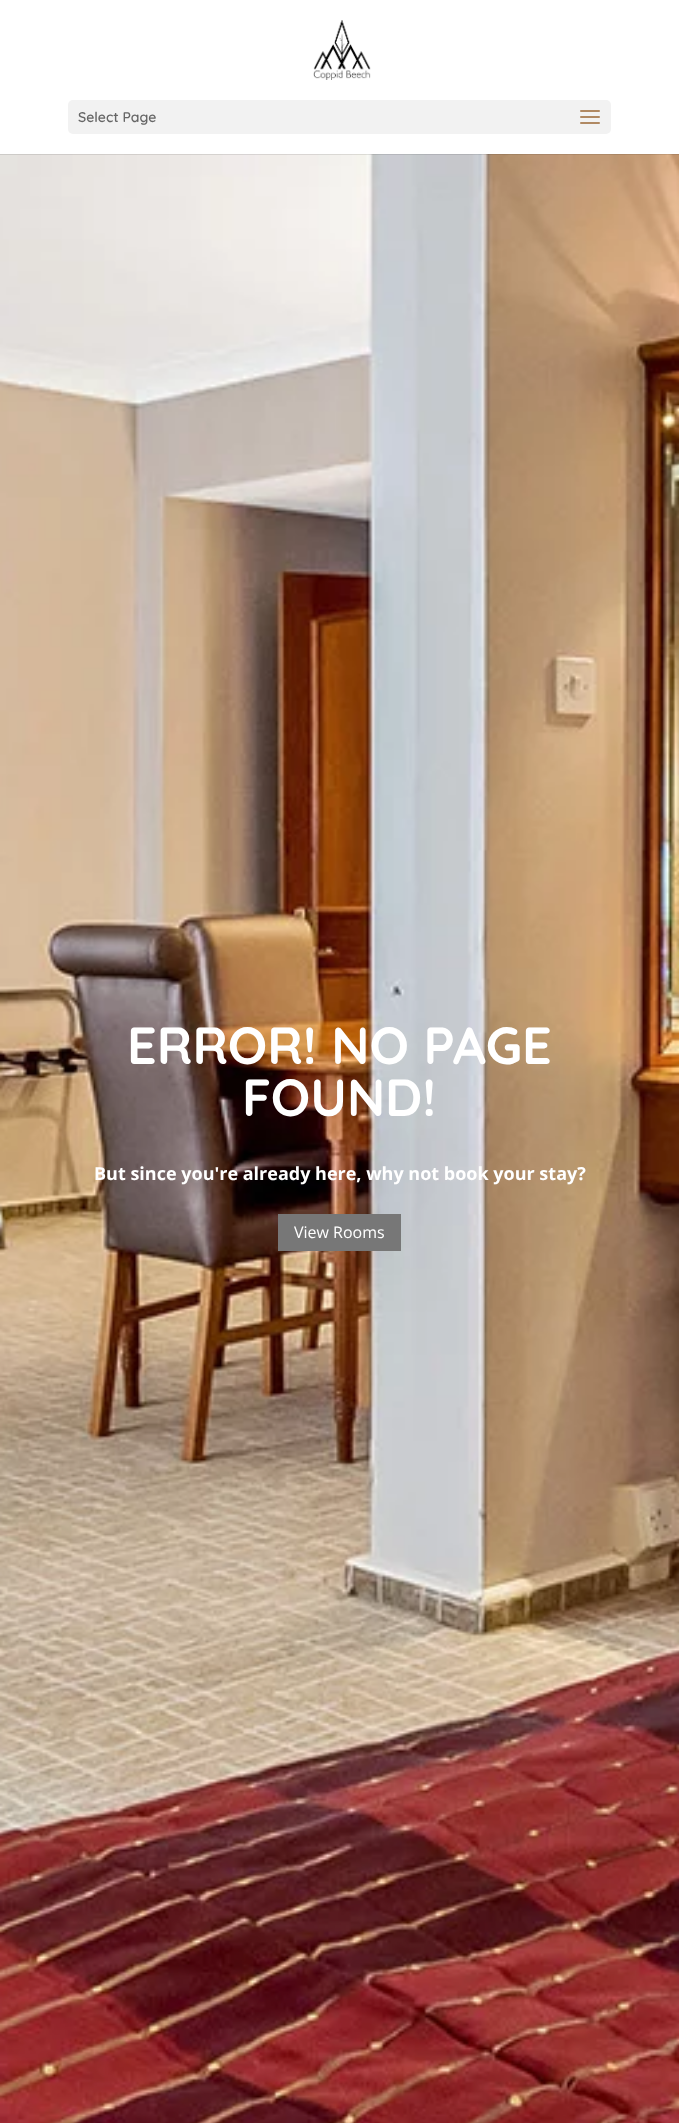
<!DOCTYPE html>
<meta charset="utf-8">
<style>body { margin: 0 } canvas { display: block }</style>
<canvas id="canvas" width="679" height="2123"></canvas>
<script type="module">
  const canvas = document.getElementById("canvas");
  const ctx = canvas.getContext("2d");
  ctx.miterLimit = 4;
  ctx.fontKerning = "normal";
  async function loadImage(src) {
    const img = new Image();
    img.src = src;
    await img.decode();
    return img;
  }

  ctx.fillStyle = "#ffffff";
  ctx.fillRect(0, 0, 679, 2123);
  ctx.drawImage(await loadImage("img3.png"), 0, 154, 679, 1969);
  ctx.fillStyle = "rgba(0, 0, 0, 0.1)";
  ctx.fillRect(0, 154, 679, 1);
  ctx.drawImage(await loadImage("img1.png"), 313, 20, 58, 60);
  ctx.fillStyle = "#f2f2f2";
  ctx.beginPath();
  ctx.roundRect(68, 100, 543, 34, 5);
  ctx.fill();
  ctx.font = "600 14px Quicksand";
  ctx.fillStyle = "#666666";
  ctx.fillText("Select Page", 78, 122);
  ctx.drawImage(await loadImage("img2.png"), 580, 110, 20, 14);
  ctx.font = "bold 52px Quicksand";
  ctx.fillStyle = "#ffffff";
  ctx.fillText("ERROR! NO PAGE", 127, 1064);
  ctx.fillText("FOUND!", 242, 1116);
  ctx.font = "bold 18px Open Sans";
  ctx.fillText("But since you're already here, why not book your stay?", 94, 1180);
  ctx.fillStyle = "#777777";
  ctx.fillRect(278, 1214, 123, 37);
  ctx.font = "16px Open Sans";
  ctx.fillStyle = "#ffffff";
  ctx.fillText("View Rooms", 294, 1238);
</script>
